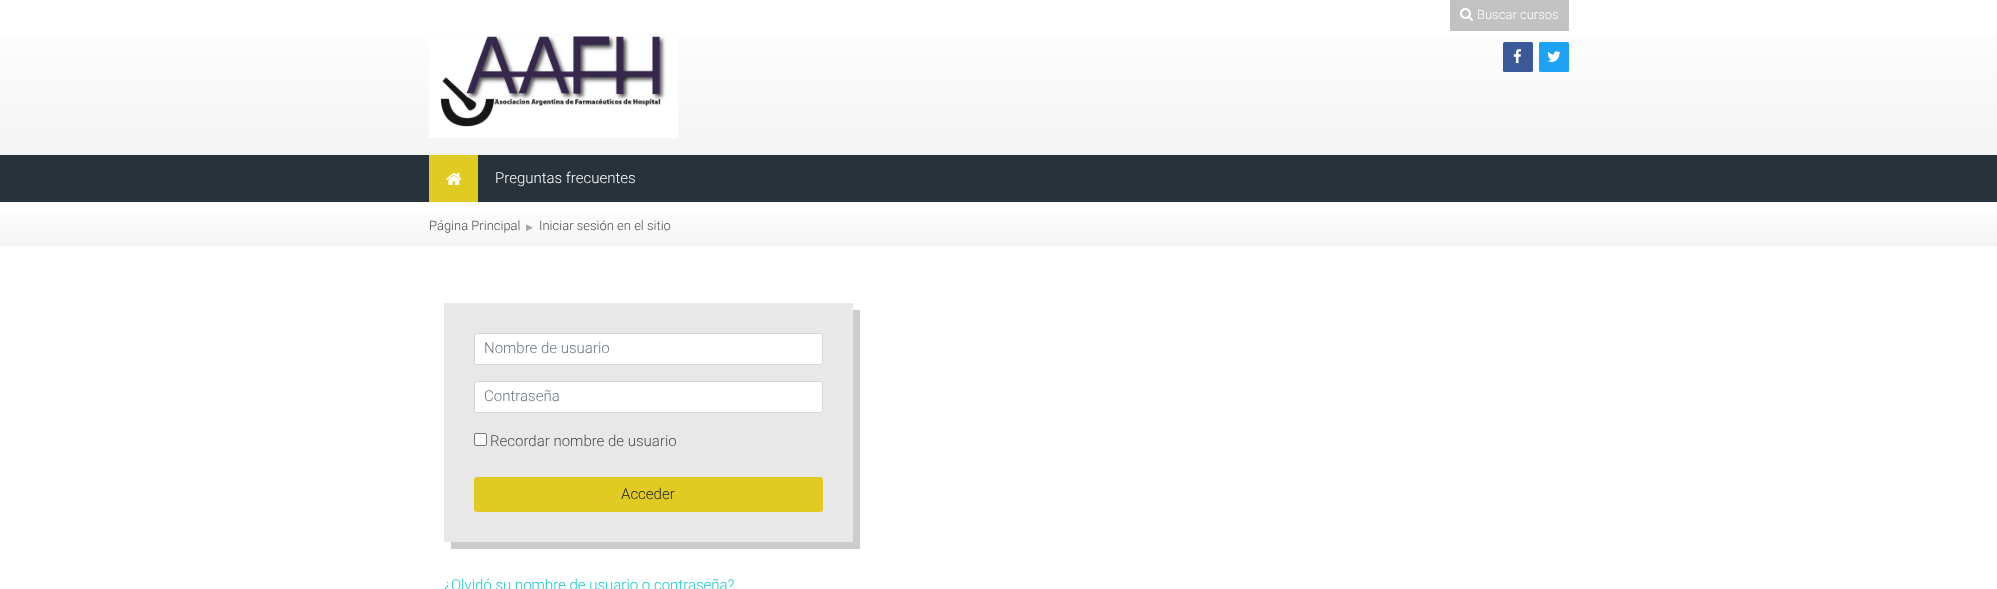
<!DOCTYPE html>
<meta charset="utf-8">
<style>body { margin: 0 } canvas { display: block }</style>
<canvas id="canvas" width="1997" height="589"></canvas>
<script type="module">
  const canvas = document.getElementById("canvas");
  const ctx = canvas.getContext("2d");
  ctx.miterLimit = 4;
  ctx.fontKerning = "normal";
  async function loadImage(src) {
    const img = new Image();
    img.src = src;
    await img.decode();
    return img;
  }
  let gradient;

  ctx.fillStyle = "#ffffff";
  ctx.fillRect(0, 0, 1997, 589);
  ctx.fillStyle = "#c2c2c2";
  ctx.fillRect(1450, 0, 119, 31);
  ctx.drawImage(await loadImage("img1.png"), 1460, 8, 13, 13);
  ctx.font = "300 13px Roboto";
  ctx.fillStyle = "#ffffff";
  ctx.fillText("Buscar cursos", 1477, 19);
  gradient = ctx.createLinearGradient(999, -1, 999, 155);
  gradient.addColorStop(0, "#ffffff");
  gradient.addColorStop(1, "#f4f4f4");
  ctx.fillStyle = gradient;
  ctx.fillRect(0, 34, 1997, 121);
  ctx.drawImage(await loadImage("img2.png"), 429, 36, 249, 102);
  ctx.fillStyle = "#3b5998";
  ctx.beginPath();
  ctx.roundRect(1503, 42, 30, 30, 1.5);
  ctx.fill();
  ctx.drawImage(await loadImage("img3.png"), 1513, 49, 9, 15);
  ctx.fillStyle = "#1da1f2";
  ctx.beginPath();
  ctx.roundRect(1539, 42, 30, 30, 1.5);
  ctx.fill();
  ctx.drawImage(await loadImage("img4.png"), 1547, 51, 14, 11);
  ctx.fillStyle = "#27323a";
  ctx.fillRect(0, 155, 1997, 47);
  ctx.fillStyle = "#e1ca21";
  ctx.fillRect(429, 155, 49, 47);
  ctx.drawImage(await loadImage("img5.png"), 446, 172, 16, 13);
  ctx.font = "300 15px Roboto";
  ctx.fillStyle = "#ffffff";
  ctx.fillText("Preguntas frecuentes", 495, 183);
  gradient = ctx.createLinearGradient(999, 202, 999, 246);
  gradient.addColorStop(0, "#ffffff");
  gradient.addColorStop(1, "#f4f4f4");
  ctx.fillStyle = gradient;
  ctx.fillRect(0, 212, 1997, 34);
  ctx.font = "300 13px Roboto";
  ctx.fillStyle = "#4c4c4c";
  ctx.fillText("Página Principal", 429, 230);
  ctx.font = "9px DejaVu Sans";
  ctx.fillStyle = "#a5a5a5";
  ctx.fillText("▶︎", 526, 230);
  ctx.font = "300 13px Roboto";
  ctx.fillStyle = "#4c4c4c";
  ctx.fillText("Iniciar sesión en el sitio", 539, 230);
  ctx.fillStyle = "#cccccc";
  ctx.beginPath();
  ctx.moveTo(451, 542);
  ctx.lineTo(451, 549);
  ctx.lineTo(860, 549);
  ctx.lineTo(860, 310);
  ctx.lineTo(853, 310);
  ctx.lineTo(853, 542);
  ctx.closePath();
  ctx.fill();
  ctx.fillStyle = "#e8e8e8";
  ctx.fillRect(444, 303, 409, 239);
  ctx.fillStyle = "#ffffff";
  ctx.beginPath();
  ctx.roundRect(474.5, 333.5, 348, 31, 2);
  ctx.fill();
  ctx.strokeStyle = "#d5d5d5";
  ctx.stroke();
  ctx.font = "300 15px Roboto";
  ctx.fillStyle = "#6c757d";
  ctx.fillText("Nombre de usuario", 484, 353);
  ctx.fillStyle = "#ffffff";
  ctx.beginPath();
  ctx.roundRect(474.5, 381.5, 348, 31, 2);
  ctx.fill();
  ctx.stroke();
  ctx.fillStyle = "#6c757d";
  ctx.fillText("Contraseña", 484, 401);
  ctx.fillStyle = "#ffffff";
  ctx.beginPath();
  ctx.roundRect(474.5, 433.5, 12, 12, 1.5);
  ctx.fill();
  ctx.strokeStyle = "#767676";
  ctx.stroke();
  ctx.fillStyle = "#4c4c4c";
  ctx.fillText("Recordar nombre de usuario", 490, 446);
  ctx.fillStyle = "#e1ca21";
  ctx.beginPath();
  ctx.roundRect(474.5, 477.5, 348, 34, 2);
  ctx.fill();
  ctx.strokeStyle = "#e1ca21";
  ctx.stroke();
  ctx.fillStyle = "#212529";
  ctx.fillText("Acceder", 621, 499);
  ctx.fillStyle = "#15cbca";
  ctx.fillText("¿Olvidó su nombre de usuario o contraseña?", 444, 590);
</script>
